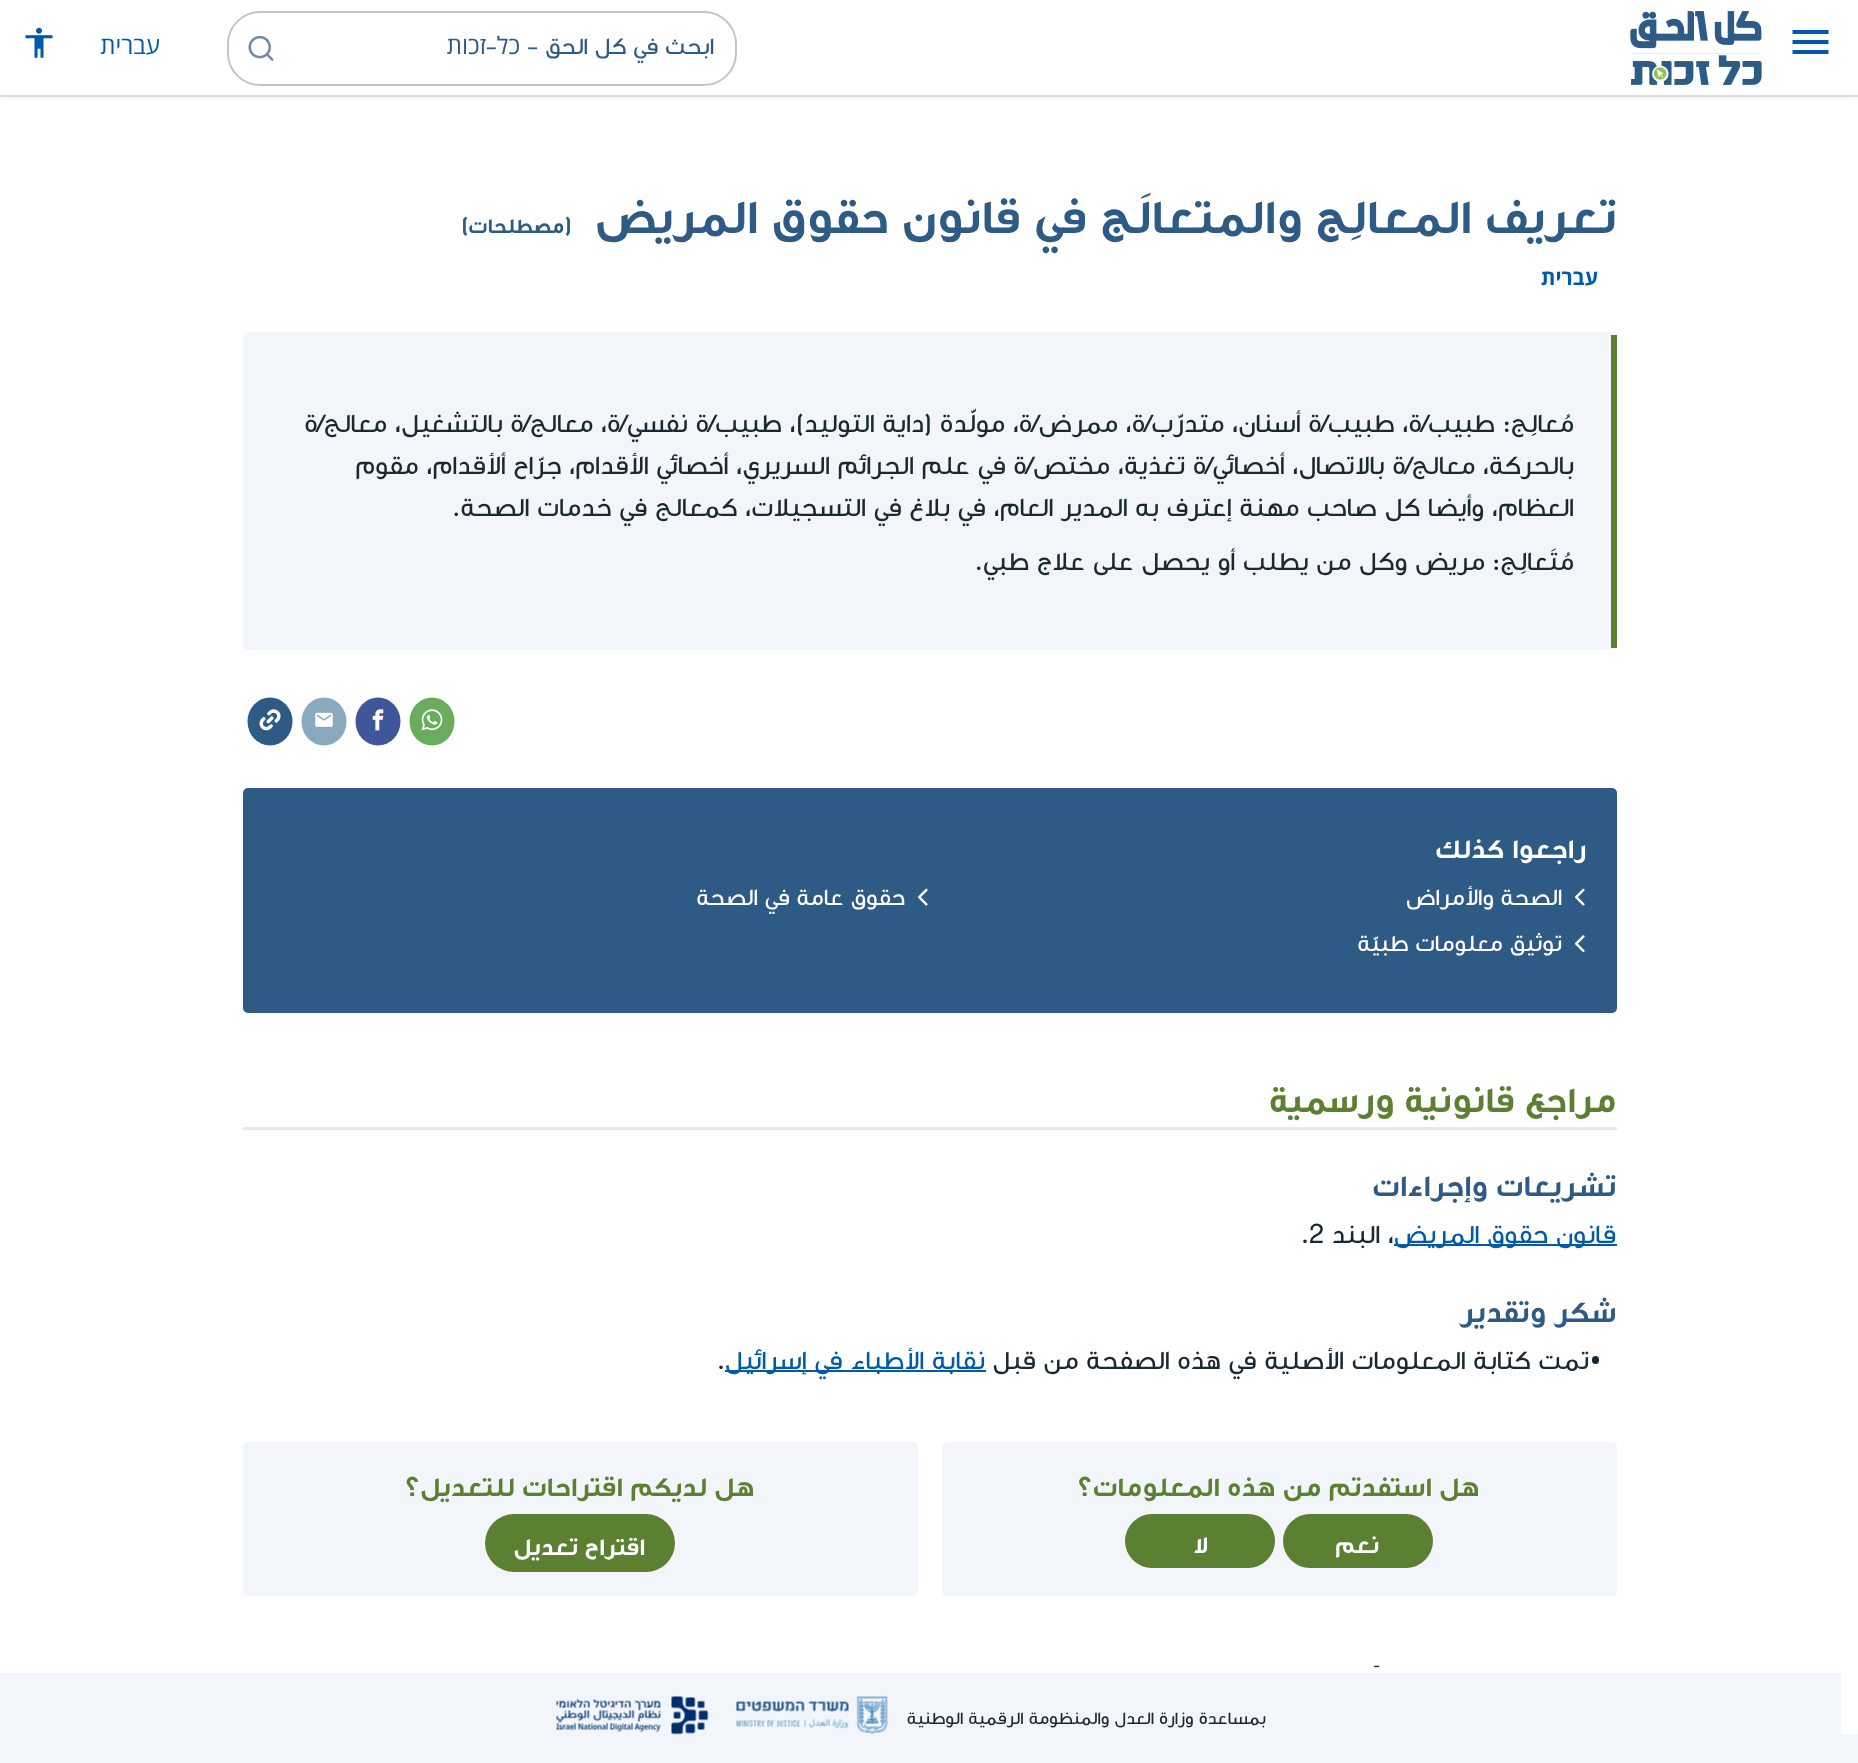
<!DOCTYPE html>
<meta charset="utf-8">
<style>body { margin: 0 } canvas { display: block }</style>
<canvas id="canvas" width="1858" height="1763"></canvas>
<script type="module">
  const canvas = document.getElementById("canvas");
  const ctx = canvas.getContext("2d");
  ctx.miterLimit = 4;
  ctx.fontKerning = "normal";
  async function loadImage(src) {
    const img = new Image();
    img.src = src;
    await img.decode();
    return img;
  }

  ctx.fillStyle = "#ffffff";
  ctx.fillRect(0, 0, 1858, 1763);
  ctx.save();
  ctx.beginPath();
  ctx.rect(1, 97, 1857, 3);
  ctx.clip();
  ctx.fillStyle = "rgba(0, 0, 0, 0.05)";
  ctx.filter = "blur(3px)";
  ctx.beginPath();
  ctx.rect(0, 3, 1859, 96);
  ctx.fill();
  ctx.filter = "none";
  ctx.restore();
  ctx.fillStyle = "#d6dbdf";
  ctx.fillRect(0, 95, 1858, 2);
  ctx.fillStyle = "#005aab";
  ctx.beginPath();
  ctx.moveTo(1792.5, 30);
  ctx.lineTo(1828.5, 30);
  ctx.lineTo(1828.5, 34);
  ctx.lineTo(1792.5, 34);
  ctx.closePath();
  ctx.moveTo(1792.5, 44);
  ctx.lineTo(1792.5, 40);
  ctx.lineTo(1828.5, 40);
  ctx.lineTo(1828.5, 44);
  ctx.closePath();
  ctx.moveTo(1792.5, 54);
  ctx.lineTo(1792.5, 50);
  ctx.lineTo(1828.5, 50);
  ctx.lineTo(1828.5, 54);
  ctx.closePath();
  ctx.fill();
  ctx.drawImage(await loadImage("img1.png"), 1630, 11, 132, 74);
  ctx.beginPath();
  ctx.roundRect(228, 12, 508, 73, 32);
  ctx.strokeStyle = "#c1c5c9";
  ctx.lineWidth = 2;
  ctx.stroke();
  ctx.direction = "rtl";
  ctx.font = "24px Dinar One";
  ctx.fillStyle = "#2d5b85";
  ctx.fillText("ابحث في كل الحق -", 714, 54);
  ctx.font = "24px Open Sans";
  ctx.fillText("כל", 520, 54);
  ctx.font = "24px Dinar One";
  ctx.fillText("-", 497, 54);
  ctx.font = "24px Open Sans";
  ctx.fillText("זכות", 486, 54);
  ctx.drawImage(await loadImage("img2.png"), 248, 35, 26, 26);
  ctx.fillStyle = "#005aab";
  ctx.fillText("עברית", 160, 54);
  ctx.drawImage(await loadImage("img3.png"), 25, 27, 28, 31);
  ctx.font = "bold 48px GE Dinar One";
  ctx.fillStyle = "#2d5b85";
  ctx.fillText("تعريف المعالِج والمتعالَج في قانون حقوق المريض", 1616, 233);
  ctx.font = "bold 21px GE Dinar One";
  ctx.fillText("(مصطلحات)", 571, 233);
  ctx.font = "bold 21px Open Sans";
  ctx.fillStyle = "#005aab";
  ctx.fillText("עברית", 1598, 285);
  ctx.fillStyle = "#f2f6fa";
  ctx.beginPath();
  ctx.roundRect(243, 332, 1374, 318, 5);
  ctx.fill();
  ctx.fillStyle = "#5b8031";
  ctx.fillRect(1611, 335, 6, 313);
  ctx.font = "500 27px GE Dinar One";
  ctx.fillStyle = "#192832";
  ctx.fillText("مُعالِج:", 1574, 432);
  ctx.font = "27px Dinar One";
  ctx.fillText("طبيب/ة، طبيب/ة أسنان، متدرّب/ة، ممرض/ة، مولّدة (داية التوليد)، طبيب/ة نفسي/ة، معالج/ة بالتشغيل، معالج/ة", 1495, 432);
  ctx.fillText("بالحركة، معالج/ة بالاتصال، أخصائي/ة تغذية، مختص/ة في علم الجرائم السريري، أخصائي الأقدام، جرّاح ألأقدام، مقوم", 1574, 474);
  ctx.fillText("العظام، وأيضا كل صاحب مهنة إعترف به المدير العام، في بلاغ في التسجيلات، كمعالج في خدمات الصحة.", 1574, 516);
  ctx.font = "500 27px GE Dinar One";
  ctx.fillText("مُتَعالِج:", 1574, 570);
  ctx.font = "27px Dinar One";
  ctx.fillText("مريض وكل من يطلب أو يحصل على علاج طبي.", 1485, 570);
  ctx.fillStyle = "#69ac5b";
  ctx.beginPath();
  ctx.ellipse(432, 721.5, 22.5, 24, 0, 0, Math.PI * 2);
  ctx.fill();
  ctx.drawImage(await loadImage("img4.png"), 421, 709, 22, 22);
  ctx.fillStyle = "#40569a";
  ctx.beginPath();
  ctx.ellipse(378, 721.5, 22.5, 24, 0, 0, Math.PI * 2);
  ctx.fill();
  ctx.drawImage(await loadImage("img5.png"), 372, 709, 12, 22);
  ctx.fillStyle = "#88a9be";
  ctx.beginPath();
  ctx.ellipse(324, 721.5, 22.5, 24, 0, 0, Math.PI * 2);
  ctx.fill();
  ctx.drawImage(await loadImage("img6.png"), 315, 712, 18, 15);
  ctx.fillStyle = "#2d5b85";
  ctx.beginPath();
  ctx.ellipse(270, 721.5, 22.5, 24, 0, 0, Math.PI * 2);
  ctx.fill();
  ctx.drawImage(await loadImage("img7.png"), 259, 709, 22, 22);
  ctx.beginPath();
  ctx.roundRect(243, 788, 1374, 225, 5);
  ctx.fill();
  ctx.font = "bold 27px GE Dinar One";
  ctx.fillStyle = "#ffffff";
  ctx.fillText("راجعوا كذلك", 1586, 858);
  ctx.drawImage(await loadImage("img8.png"), 1575, 888, 10, 18);
  ctx.font = "24px Dinar One";
  ctx.fillText("الصحة والأمراض", 1562, 905);
  ctx.drawImage(await loadImage("img8.png"), 918, 888, 10, 18);
  ctx.fillText("حقوق عامة في الصحة", 905, 905);
  ctx.drawImage(await loadImage("img9.png"), 1575, 935, 10, 17);
  ctx.fillText("توثيق معلومات طبيّة", 1562, 951);
  ctx.fillStyle = "#e2eaf3";
  ctx.fillRect(243, 1127, 1374, 3);
  ctx.font = "bold 36px GE Dinar One";
  ctx.fillStyle = "#5b8031";
  ctx.fillText("مراجع قانونية ورسمية", 1616, 1112);
  ctx.font = "bold 30px GE Dinar One";
  ctx.fillStyle = "#2d5b85";
  ctx.fillText("تشريعات وإجراءات", 1616, 1196);
  ctx.fillStyle = "#005aab";
  ctx.fillRect(1394, 1244, 223, 2);
  ctx.font = "27px Dinar One";
  ctx.fillText("قانون حقوق المريض", 1616, 1243);
  ctx.fillStyle = "#192832";
  ctx.fillText("، البند", 1394, 1243);
  ctx.direction = "ltr";
  ctx.fillText(".2", 1299, 1243);
  ctx.direction = "rtl";
  ctx.font = "bold 30px GE Dinar One";
  ctx.fillStyle = "#2d5b85";
  ctx.fillText("شكر وتقدير", 1616, 1322);
  ctx.fillStyle = "#192832";
  ctx.beginPath();
  ctx.roundRect(1592, 1356, 7, 8, 3.5);
  ctx.fill();
  ctx.font = "27px Dinar One";
  ctx.fillText("تمت كتابة المعلومات الأصلية في هذه الصفحة من قبل", 1589, 1369);
  ctx.fillStyle = "#005aab";
  ctx.fillRect(725, 1370, 261, 2);
  ctx.fillText("نقابة الأطباء في إسرائيل", 985, 1369);
  ctx.direction = "ltr";
  ctx.fillStyle = "#192832";
  ctx.fillText(".", 715, 1369);
  ctx.fillStyle = "#f2f6fa";
  ctx.beginPath();
  ctx.roundRect(942, 1442, 675, 154, 5);
  ctx.fill();
  ctx.direction = "rtl";
  ctx.font = "bold 27px GE Dinar One";
  ctx.fillStyle = "#5b8031";
  ctx.fillText("هل استفدتم من هذه المعلومات؟", 1479, 1496);
  ctx.beginPath();
  ctx.roundRect(1283, 1514, 150, 54, 27);
  ctx.fill();
  ctx.font = "bold 24px GE Dinar One";
  ctx.fillStyle = "#ffffff";
  ctx.fillText("نعم", 1379, 1553);
  ctx.fillStyle = "#5b8031";
  ctx.beginPath();
  ctx.roundRect(1125, 1514, 150, 54, 27);
  ctx.fill();
  ctx.fillStyle = "#ffffff";
  ctx.fillText("لا", 1208, 1553);
  ctx.fillStyle = "#f2f6fa";
  ctx.beginPath();
  ctx.roundRect(243, 1442, 675, 154, 5);
  ctx.fill();
  ctx.font = "bold 27px GE Dinar One";
  ctx.fillStyle = "#5b8031";
  ctx.fillText("هل لديكم اقتراحات للتعديل؟", 754, 1496);
  ctx.beginPath();
  ctx.roundRect(485, 1514, 190, 58, 29);
  ctx.fill();
  ctx.font = "bold 24px GE Dinar One";
  ctx.fillStyle = "#ffffff";
  ctx.fillText("اقتراح تعديل", 645, 1555);
  ctx.font = "21px Open Sans";
  ctx.fillStyle = "#192832";
  ctx.fillText("־", 1380, 1679);
  ctx.fillStyle = "#f2f6fa";
  ctx.fillRect(1841, 1734, 17, 29);
  ctx.fillRect(0, 1673, 1841, 90);
  ctx.font = "18px Dinar One";
  ctx.fillStyle = "#192832";
  ctx.fillText("بمساعدة وزارة العدل والمنظومة الرقمية الوطنية", 1266, 1724);
  ctx.drawImage(await loadImage("img10.png"), 736, 1696, 152, 39);
  ctx.drawImage(await loadImage("img11.png"), 556, 1696, 153, 39);
</script>
